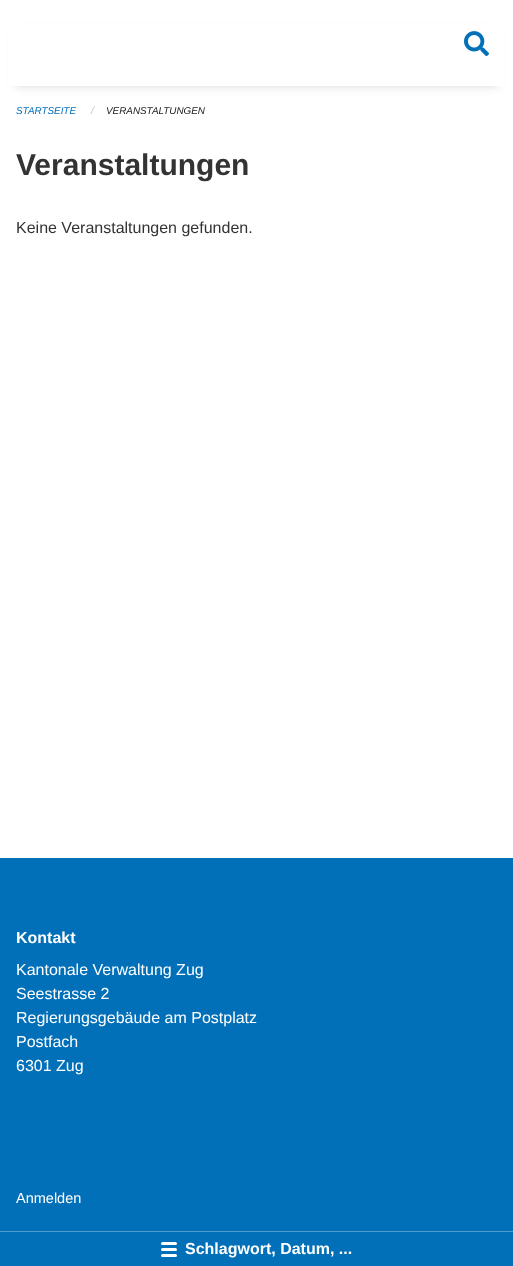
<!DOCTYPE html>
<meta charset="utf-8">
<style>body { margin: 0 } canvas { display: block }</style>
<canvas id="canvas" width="513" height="1266"></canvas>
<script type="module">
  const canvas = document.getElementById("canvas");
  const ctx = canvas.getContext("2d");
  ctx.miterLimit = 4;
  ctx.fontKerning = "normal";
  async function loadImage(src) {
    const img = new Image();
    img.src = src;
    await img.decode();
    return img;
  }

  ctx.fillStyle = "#ffffff";
  ctx.fillRect(0, 0, 513, 1266);
  ctx.fillStyle = "rgba(0, 0, 0, 0.15)";
  ctx.filter = "blur(5px)";
  ctx.beginPath();
  ctx.rect(15, 30, 483, 56);
  ctx.fill();
  ctx.filter = "none";
  ctx.fillStyle = "#ffffff";
  ctx.fillRect(8, 23, 497, 63);
  ctx.drawImage(await loadImage("img1.png"), 464, 31, 25, 26);
  ctx.font = "italic 9.9px Liberation Sans";
  ctx.fillStyle = "#0270b9";
  ctx.fillText("STARTSEITE", 16, 114);
  ctx.font = "italic 11px Liberation Sans";
  ctx.fillStyle = "#cacaca";
  ctx.fillText("/", 91, 114);
  ctx.font = "italic 9.9px Liberation Sans";
  ctx.fillStyle = "#222222";
  ctx.fillText("VERANSTALTUNGEN", 106, 114);
  ctx.font = "bold 30px Liberation Sans";
  ctx.fillStyle = "#333333";
  ctx.fillText("Veranstaltungen", 16, 175);
  ctx.font = "16px Liberation Sans";
  ctx.fillText("Keine Veranstaltungen gefunden.", 16, 233);
  ctx.fillStyle = "#0270b9";
  ctx.fillRect(0, 858, 513, 408);
  ctx.font = "bold 16px Liberation Sans";
  ctx.fillStyle = "#ffffff";
  ctx.fillText("Kontakt", 16, 943);
  ctx.font = "16px Liberation Sans";
  ctx.fillText("Kantonale Verwaltung Zug", 16, 975);
  ctx.fillText("Seestrasse 2", 16, 999);
  ctx.fillText("Regierungsgebäude am Postplatz", 16, 1023);
  ctx.fillText("Postfach", 16, 1047);
  ctx.fillText("6301 Zug", 16, 1071);
  ctx.font = "14.5px Liberation Sans";
  ctx.fillText("Anmelden", 16, 1203);
  ctx.fillStyle = "#4e9bce";
  ctx.fillRect(0, 1231, 513, 1);
  ctx.fillStyle = "#ffffff";
  ctx.beginPath();
  ctx.roundRect(161, 1242, 16, 3, 1.5);
  ctx.fill();
  ctx.beginPath();
  ctx.roundRect(161, 1248, 16, 3, 1.5);
  ctx.fill();
  ctx.beginPath();
  ctx.roundRect(161, 1254, 16, 3, 1.5);
  ctx.fill();
  ctx.font = "bold 16px Liberation Sans";
  ctx.fillText("Schlagwort, Datum, ...", 185, 1254);
</script>
